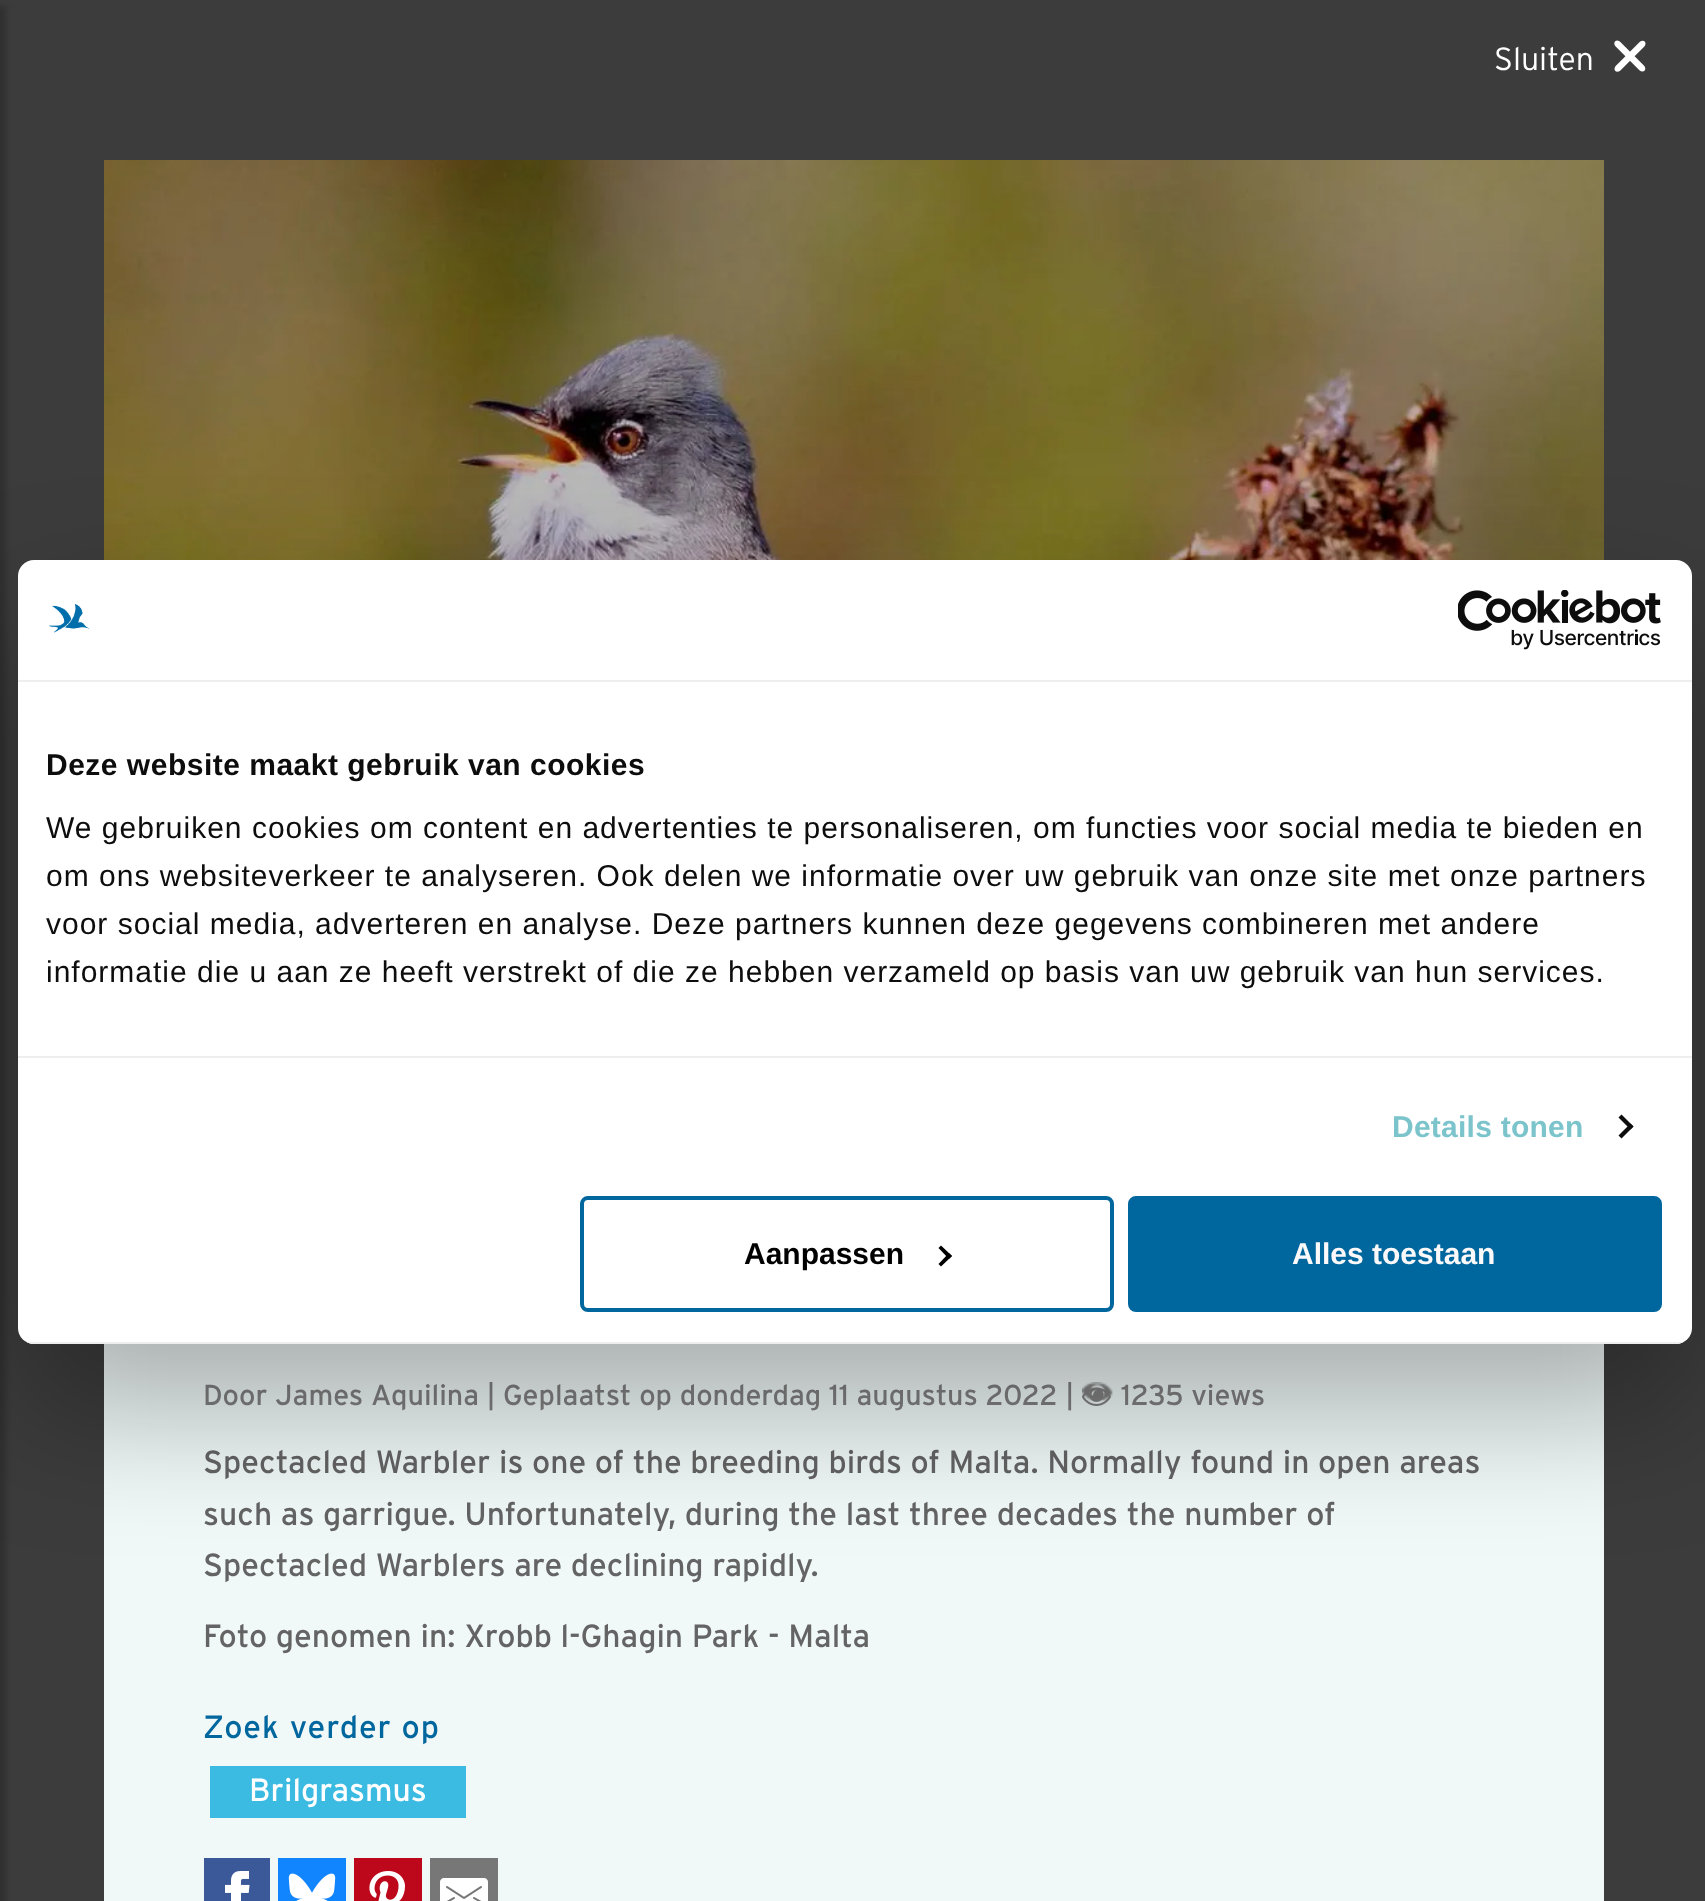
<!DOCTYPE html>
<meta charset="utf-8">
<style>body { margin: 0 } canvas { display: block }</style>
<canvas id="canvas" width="1705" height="1901"></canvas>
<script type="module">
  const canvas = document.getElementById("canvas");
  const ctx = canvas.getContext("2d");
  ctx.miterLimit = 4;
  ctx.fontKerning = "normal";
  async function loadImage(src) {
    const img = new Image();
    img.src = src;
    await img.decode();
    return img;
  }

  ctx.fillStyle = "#3c3c3c";
  ctx.fillRect(0, 0, 1705, 1901);
  ctx.fillStyle = "rgba(0, 0, 0, 0.2)";
  ctx.filter = "blur(3px)";
  ctx.beginPath();
  ctx.rect(-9, 6, 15, 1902);
  ctx.fill();
  ctx.filter = "none";
  ctx.font = "300 32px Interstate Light";
  ctx.fillStyle = "#ffffff";
  ctx.fillText("Sluiten", 1494, 70);
  ctx.drawImage(await loadImage("img1.png"), 1614, 40, 32, 32);
  ctx.fillStyle = "#f0f8f8";
  ctx.fillRect(104, 1344, 1500, 557);
  ctx.drawImage(await loadImage("img2.png"), 104, 160, 1500, 400);
  ctx.font = "28.8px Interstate";
  ctx.fillStyle = "#818181";
  ctx.fillText("Door James Aquilina | Geplaatst op donderdag 11 augustus 2022 |", 203, 1405);
  ctx.drawImage(await loadImage("img3.png"), 1082, 1382, 31, 20);
  ctx.drawImage(await loadImage("img4.png"), 1082, 1387, 29, 19);
  ctx.fillText("1235 views", 1121, 1405);
  ctx.font = "32px Interstate";
  ctx.fillStyle = "#646464";
  ctx.fillText("Spectacled Warbler is one of the breeding birds of Malta. Normally found in open areas", 203, 1473);
  ctx.fillText("such as garrigue. Unfortunately, during the last three decades the number of", 203, 1525);
  ctx.fillText("Spectacled Warblers are declining rapidly.", 203, 1576);
  ctx.fillText("Foto genomen in: Xrobb l-Ghagin Park - Malta", 203, 1647);
  ctx.letterSpacing = "1px";
  ctx.fillStyle = "#00669e";
  ctx.fillText("Zoek verder op", 203, 1738);
  ctx.fillStyle = "#3bbae2";
  ctx.fillRect(210, 1766, 256, 52);
  ctx.letterSpacing = "0px";
  ctx.fillStyle = "#ffffff";
  ctx.fillText("Brilgrasmus", 249, 1801);
  ctx.fillStyle = "#3b5998";
  ctx.fillRect(204, 1858, 66, 43);
  ctx.drawImage(await loadImage("img5.png"), 225, 1871, 25, 30);
  ctx.fillStyle = "#1185fe";
  ctx.fillRect(278, 1858, 68, 43);
  ctx.drawImage(await loadImage("img6.png"), 288, 1873, 48, 28);
  ctx.fillStyle = "#bd081c";
  ctx.fillRect(354, 1858, 68, 43);
  ctx.drawImage(await loadImage("img7.png"), 369, 1871, 36, 30);
  ctx.fillStyle = "#777777";
  ctx.fillRect(430, 1858, 68, 43);
  ctx.drawImage(await loadImage("img8.png"), 440, 1878, 48, 23);
  ctx.fillStyle = "rgba(0, 0, 0, 0.3)";
  ctx.filter = "blur(68px)";
  ctx.beginPath();
  ctx.roundRect(18, 624, 1674, 784, 16);
  ctx.fill();
  ctx.filter = "none";
  ctx.fillStyle = "#ffffff";
  ctx.beginPath();
  ctx.roundRect(18, 560, 1674, 784, 16);
  ctx.fill();
  ctx.fillStyle = "#eeeeee";
  ctx.fillRect(18, 680, 1674, 2);
  ctx.drawImage(await loadImage("img9.png"), 49, 604, 41, 29);
  ctx.drawImage(await loadImage("img10.png"), 1458, 590, 203, 60);
  ctx.fillRect(18, 1056, 1674, 2);
  ctx.letterSpacing = "0.5px";
  ctx.font = "bold 30px Liberation Sans";
  ctx.fillStyle = "#0d0d0d";
  ctx.fillText("Deze website maakt gebruik van cookies", 46, 775);
  ctx.letterSpacing = "1px";
  ctx.font = "30px Liberation Sans";
  ctx.fillText("We gebruiken cookies om content en advertenties te personaliseren, om functies voor social media te bieden en", 46, 838);
  ctx.fillText("om ons websiteverkeer te analyseren. Ook delen we informatie over uw gebruik van onze site met onze partners", 46, 886);
  ctx.fillText("voor social media, adverteren en analyse. Deze partners kunnen deze gegevens combineren met andere", 46, 934);
  ctx.fillText("informatie die u aan ze heeft verstrekt of die ze hebben verzameld op basis van uw gebruik van hun services.", 46, 982);
  ctx.letterSpacing = "0.25px";
  ctx.font = "bold 30px Liberation Sans";
  ctx.fillStyle = "#7cc4cb";
  ctx.fillText("Details tonen", 1392, 1137);
  ctx.fillStyle = "#0d0d0d";
  ctx.beginPath();
  ctx.moveTo(1621.5, 1114.5);
  ctx.lineTo(1633.5, 1126.5);
  ctx.lineTo(1630.5, 1129.5);
  ctx.lineTo(1618.5, 1117.5);
  ctx.closePath();
  ctx.fill();
  ctx.beginPath();
  ctx.moveTo(1630.5, 1123.5);
  ctx.lineTo(1633.5, 1126.5);
  ctx.lineTo(1621.5, 1138.5);
  ctx.lineTo(1618.5, 1135.5);
  ctx.closePath();
  ctx.fill();
  ctx.save();
  ctx.beginPath();
  ctx.roundRect(18, 560, 1674, 784, 16);
  ctx.clip();
  ctx.fillStyle = "#eeeeee";
  ctx.fillRect(18, 1342, 1674, 2);
  ctx.restore();
  ctx.beginPath();
  ctx.roundRect(582, 1198, 530, 112, 6);
  ctx.strokeStyle = "#00669e";
  ctx.lineWidth = 4;
  ctx.stroke();
  ctx.letterSpacing = "0px";
  ctx.fillStyle = "#000000";
  ctx.fillText("Aanpassen", 744, 1264);
  ctx.beginPath();
  ctx.moveTo(941, 1245.5);
  ctx.lineTo(952, 1256);
  ctx.lineTo(949, 1259);
  ctx.lineTo(938.5, 1248);
  ctx.closePath();
  ctx.fill();
  ctx.beginPath();
  ctx.moveTo(949, 1253);
  ctx.lineTo(952, 1256);
  ctx.lineTo(941, 1266.5);
  ctx.lineTo(938.5, 1264);
  ctx.closePath();
  ctx.fill();
  ctx.fillStyle = "#00669e";
  ctx.beginPath();
  ctx.roundRect(1130, 1198, 530, 112, 6);
  ctx.fill();
  ctx.stroke();
  ctx.fillStyle = "#fbf9f9";
  ctx.fillText("Alles toestaan", 1292, 1264);
</script>
